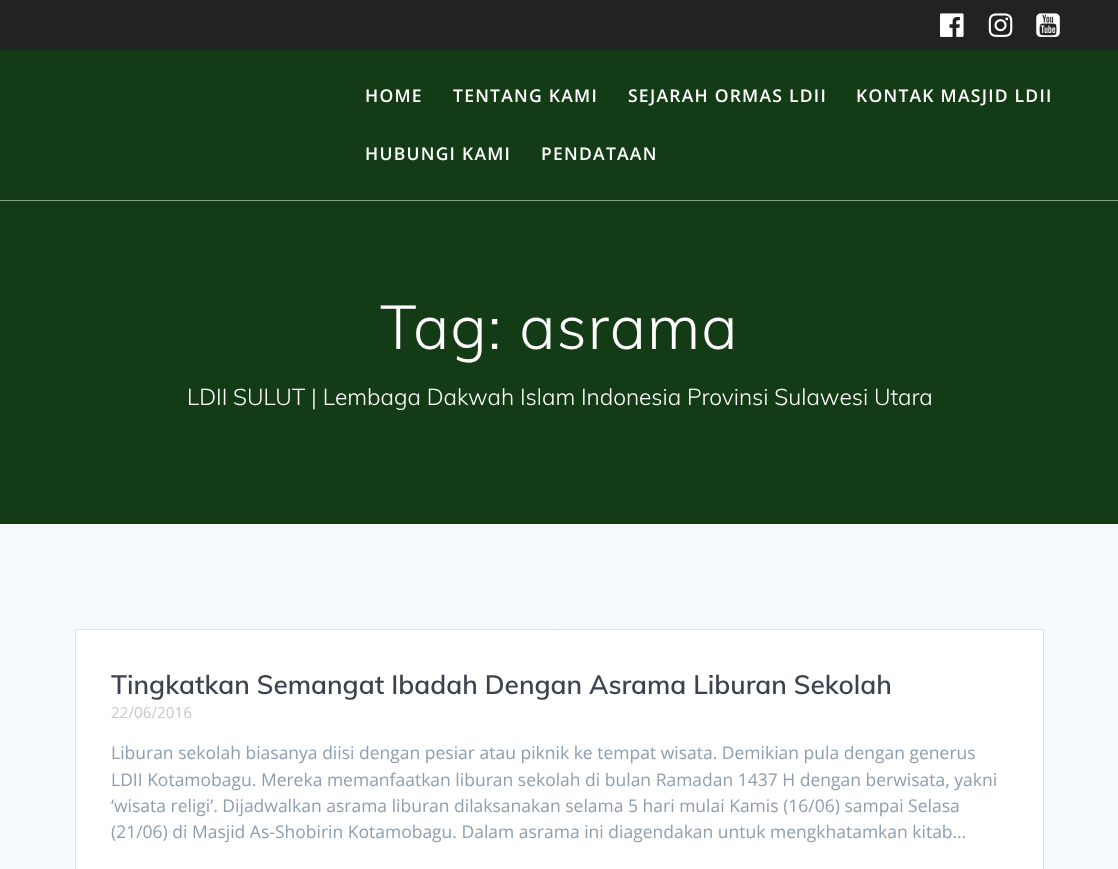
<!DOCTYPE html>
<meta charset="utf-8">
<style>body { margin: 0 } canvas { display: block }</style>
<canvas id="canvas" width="1118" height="869"></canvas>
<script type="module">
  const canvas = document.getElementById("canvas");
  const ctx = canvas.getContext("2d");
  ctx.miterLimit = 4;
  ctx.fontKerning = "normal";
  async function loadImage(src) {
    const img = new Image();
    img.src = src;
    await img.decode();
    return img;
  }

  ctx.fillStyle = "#133c16";
  ctx.fillRect(0, 0, 1118, 869);
  ctx.fillStyle = "#222222";
  ctx.fillRect(0, 0, 1118, 50);
  ctx.drawImage(await loadImage("img1.png"), 940, 13, 24, 24);
  ctx.drawImage(await loadImage("img2.png"), 988, 13, 25, 24);
  ctx.drawImage(await loadImage("img3.png"), 1036, 13, 24, 24);
  ctx.fillStyle = "#899e8b";
  ctx.fillRect(0, 200, 1118, 1);
  ctx.letterSpacing = "1.25px";
  ctx.font = "600 17.5px Open Sans";
  ctx.fillStyle = "#ffffff";
  ctx.fillText("HOME", 365, 102);
  ctx.fillText("TENTANG KAMI", 453, 102);
  ctx.fillText("SEJARAH ORMAS LDII", 628, 102);
  ctx.fillText("KONTAK MASJID LDII", 856, 102);
  ctx.fillText("HUBUNGI KAMI", 365, 160);
  ctx.fillText("PENDATAAN", 541, 160);
  ctx.letterSpacing = "1.1px";
  ctx.font = "300 61.25px Muli";
  ctx.fillText("Tag: asrama", 380, 349);
  ctx.letterSpacing = "0px";
  ctx.font = "300 22.75px Muli";
  ctx.fillText("LDII SULUT | Lembaga Dakwah Islam Indonesia Provinsi Sulawesi Utara", 187, 405);
  ctx.fillStyle = "#f5fafd";
  ctx.fillRect(0, 524, 1118, 345);
  ctx.fillStyle = "#ffffff";
  ctx.beginPath();
  ctx.rect(75.5, 629.5, 968, 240);
  ctx.fill();
  ctx.strokeStyle = "#e0e1e1";
  ctx.stroke();
  ctx.font = "600 26.25px Muli";
  ctx.fillStyle = "#3c424f";
  ctx.fillText("Tingkatkan Semangat Ibadah Dengan Asrama Liburan Sekolah", 111, 694);
  ctx.font = "15.25px Open Sans";
  ctx.fillStyle = "#c1c9d2";
  ctx.fillText("22/06/2016", 111, 718);
  ctx.font = "17.5px Open Sans";
  ctx.fillStyle = "#8e9dae";
  ctx.fillText("Liburan sekolah biasanya diisi dengan pesiar atau piknik ke tempat wisata. Demikian pula dengan generus", 111, 759);
  ctx.fillText("LDII Kotamobagu. Mereka memanfaatkan liburan sekolah di bulan Ramadan 1437 H dengan berwisata, yakni", 111, 786);
  ctx.fillText("‘wisata religi’. Dijadwalkan asrama liburan dilaksanakan selama 5 hari mulai Kamis (16/06) sampai Selasa", 111, 812);
  ctx.fillText("(21/06) di Masjid As-Shobirin Kotamobagu. Dalam asrama ini diagendakan untuk mengkhatamkan kitab…", 111, 838);
</script>
